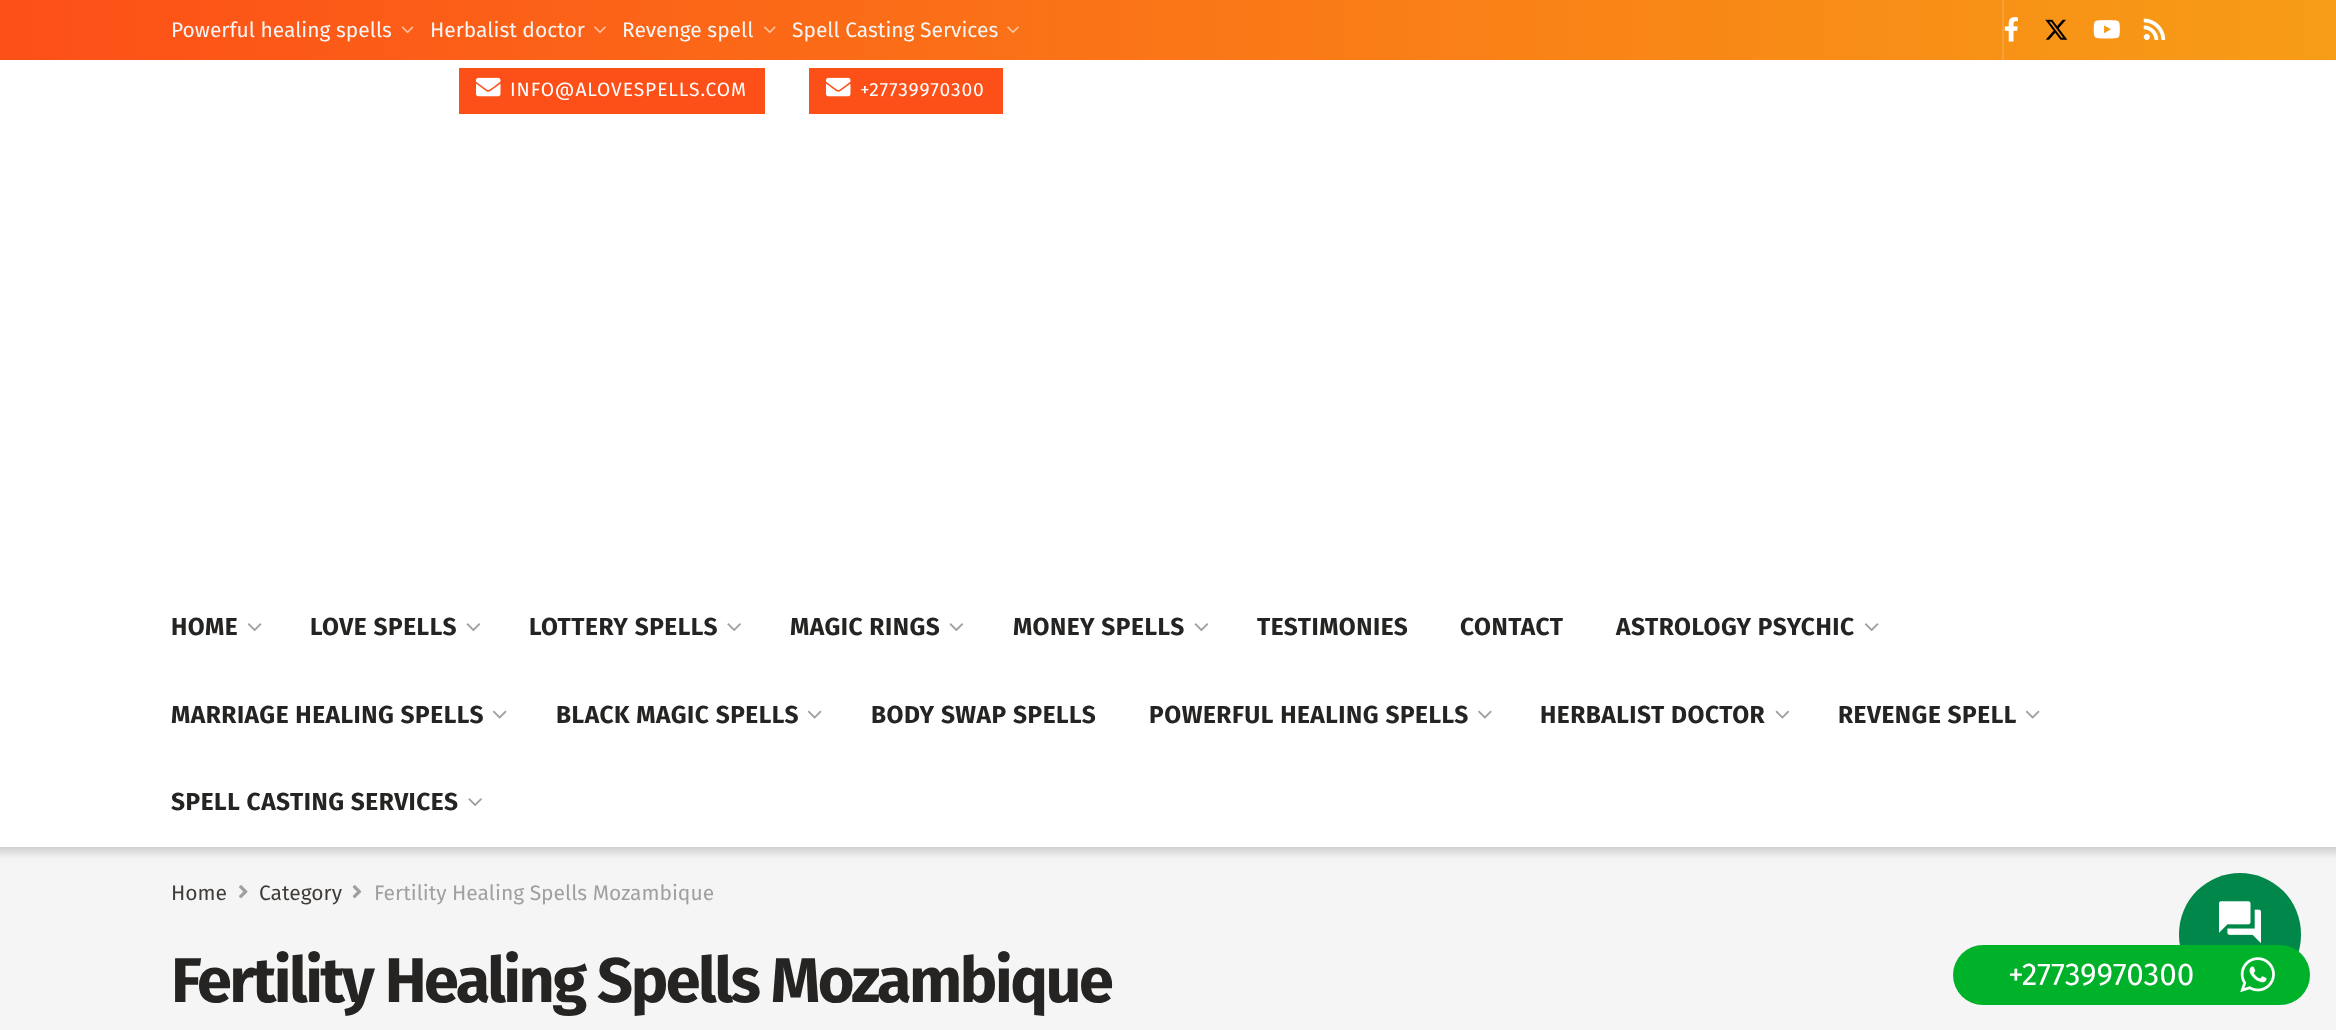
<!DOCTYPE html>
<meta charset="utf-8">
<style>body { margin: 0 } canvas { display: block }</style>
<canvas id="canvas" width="2336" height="1030"></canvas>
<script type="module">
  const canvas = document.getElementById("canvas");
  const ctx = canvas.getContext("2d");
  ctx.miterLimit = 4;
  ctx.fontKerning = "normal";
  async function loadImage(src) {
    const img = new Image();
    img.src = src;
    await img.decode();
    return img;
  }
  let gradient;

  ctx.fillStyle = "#ffffff";
  ctx.fillRect(0, 0, 2336, 1030);
  gradient = ctx.createLinearGradient(0, 30, 2336, 30);
  gradient.addColorStop(0, "#fd4f18");
  gradient.addColorStop(1, "#f79d16");
  ctx.fillStyle = gradient;
  ctx.fillRect(0, 0, 2336, 60);
  ctx.fillStyle = "#f9a239";
  ctx.fillRect(2002, 0, 2, 60);
  ctx.font = "21px Fira Sans";
  ctx.fillStyle = "#f5f5f5";
  ctx.fillText("Powerful healing spells", 171, 37);
  ctx.drawImage(await loadImage("img1.png"), 401, 26, 13, 8);
  ctx.fillText("Herbalist doctor", 430, 37);
  ctx.drawImage(await loadImage("img2.png"), 594, 26, 12, 8);
  ctx.fillText("Revenge spell", 622, 37);
  ctx.drawImage(await loadImage("img3.png"), 764, 26, 12, 8);
  ctx.fillText("Spell Casting Services", 792, 37);
  ctx.drawImage(await loadImage("img4.png"), 1007, 26, 12, 8);
  ctx.fillStyle = "#fd4f18";
  ctx.fillRect(459, 68, 306, 46);
  ctx.drawImage(await loadImage("img5.png"), 476, 77, 25, 20);
  ctx.letterSpacing = "0.9px";
  ctx.font = "19.25px Fira Sans";
  ctx.fillStyle = "#ffffff";
  ctx.fillText("INFO@ALOVESPELLS.COM", 510, 96);
  ctx.fillStyle = "#fd4f18";
  ctx.fillRect(809, 68, 194, 46);
  ctx.drawImage(await loadImage("img5.png"), 826, 77, 25, 20);
  ctx.fillStyle = "#ffffff";
  ctx.fillText("+27739970300", 860, 96);
  ctx.drawImage(await loadImage("img6.png"), 2004, 17, 14, 25);
  ctx.drawImage(await loadImage("img7.png"), 2045, 19, 23, 21);
  ctx.drawImage(await loadImage("img8.png"), 2093, 20, 27, 19);
  ctx.drawImage(await loadImage("img9.png"), 2143, 18, 23, 22);
  ctx.letterSpacing = "0.5px";
  ctx.font = "bold 24.5px Fira Sans";
  ctx.fillStyle = "#252422";
  ctx.fillText("HOME", 171, 635);
  ctx.drawImage(await loadImage("img10.png"), 247, 623, 15, 9);
  ctx.fillText("LOVE SPELLS", 310, 635);
  ctx.drawImage(await loadImage("img11.png"), 466, 623, 15, 9);
  ctx.fillText("LOTTERY SPELLS", 529, 635);
  ctx.drawImage(await loadImage("img12.png"), 727, 623, 14, 8);
  ctx.fillText("MAGIC RINGS", 790, 635);
  ctx.drawImage(await loadImage("img11.png"), 949, 623, 15, 9);
  ctx.fillText("MONEY SPELLS", 1013, 635);
  ctx.drawImage(await loadImage("img11.png"), 1194, 623, 15, 9);
  ctx.fillText("TESTIMONIES", 1257, 635);
  ctx.fillText("CONTACT", 1460, 635);
  ctx.fillText("ASTROLOGY PSYCHIC", 1616, 635);
  ctx.drawImage(await loadImage("img10.png"), 1864, 623, 15, 9);
  ctx.fillText("MARRIAGE HEALING SPELLS", 171, 723);
  ctx.drawImage(await loadImage("img13.png"), 492, 710, 15, 9);
  ctx.fillText("BLACK MAGIC SPELLS", 556, 723);
  ctx.drawImage(await loadImage("img13.png"), 807, 710, 15, 9);
  ctx.fillText("BODY SWAP SPELLS", 871, 723);
  ctx.fillText("POWERFUL HEALING SPELLS", 1149, 723);
  ctx.drawImage(await loadImage("img14.png"), 1478, 710, 14, 9);
  ctx.fillText("HERBALIST DOCTOR", 1540, 723);
  ctx.drawImage(await loadImage("img15.png"), 1775, 710, 15, 9);
  ctx.fillText("REVENGE SPELL", 1838, 723);
  ctx.drawImage(await loadImage("img13.png"), 2025, 710, 15, 9);
  ctx.fillText("SPELL CASTING SERVICES", 171, 810);
  ctx.drawImage(await loadImage("img12.png"), 468, 798, 14, 8);
  gradient = ctx.createLinearGradient(1168, 847, 1168, 859);
  gradient.addColorStop(0, "#d0d0d0");
  gradient.addColorStop(1, "#f5f5f5");
  ctx.fillStyle = gradient;
  ctx.fillRect(0, 847, 2336, 12);
  ctx.fillStyle = "#f5f5f5";
  ctx.fillRect(0, 859, 2336, 171);
  ctx.letterSpacing = "0px";
  ctx.font = "21px Fira Sans";
  ctx.fillStyle = "#403d39";
  ctx.fillText("Home", 171, 900);
  ctx.drawImage(await loadImage("img16.png"), 239, 885, 9, 14);
  ctx.fillText("Category", 259, 900);
  ctx.drawImage(await loadImage("img17.png"), 352, 885, 10, 14);
  ctx.fillStyle = "#a0a0a0";
  ctx.fillText("Fertility Healing Spells Mozambique", 374, 900);
  ctx.letterSpacing = "-2.5px";
  ctx.font = "bold 63px Fira Sans";
  ctx.fillStyle = "#252422";
  ctx.fillText("Fertility Healing Spells Mozambique", 171, 1002);
  ctx.fillStyle = "#008749";
  ctx.beginPath();
  ctx.roundRect(2179, 873, 122, 123, 61);
  ctx.fill();
  ctx.fillStyle = "#00b229";
  ctx.beginPath();
  ctx.roundRect(1953, 945, 357, 60, 30);
  ctx.fill();
  ctx.letterSpacing = "0px";
  ctx.font = "31.5px Fira Sans";
  ctx.fillStyle = "#ffffff";
  ctx.fillText("+27739970300", 2008, 985);
  ctx.drawImage(await loadImage("img18.png"), 2240, 957, 35, 35);
  ctx.drawImage(await loadImage("img19.png"), 2219, 901, 42, 42);
</script>
